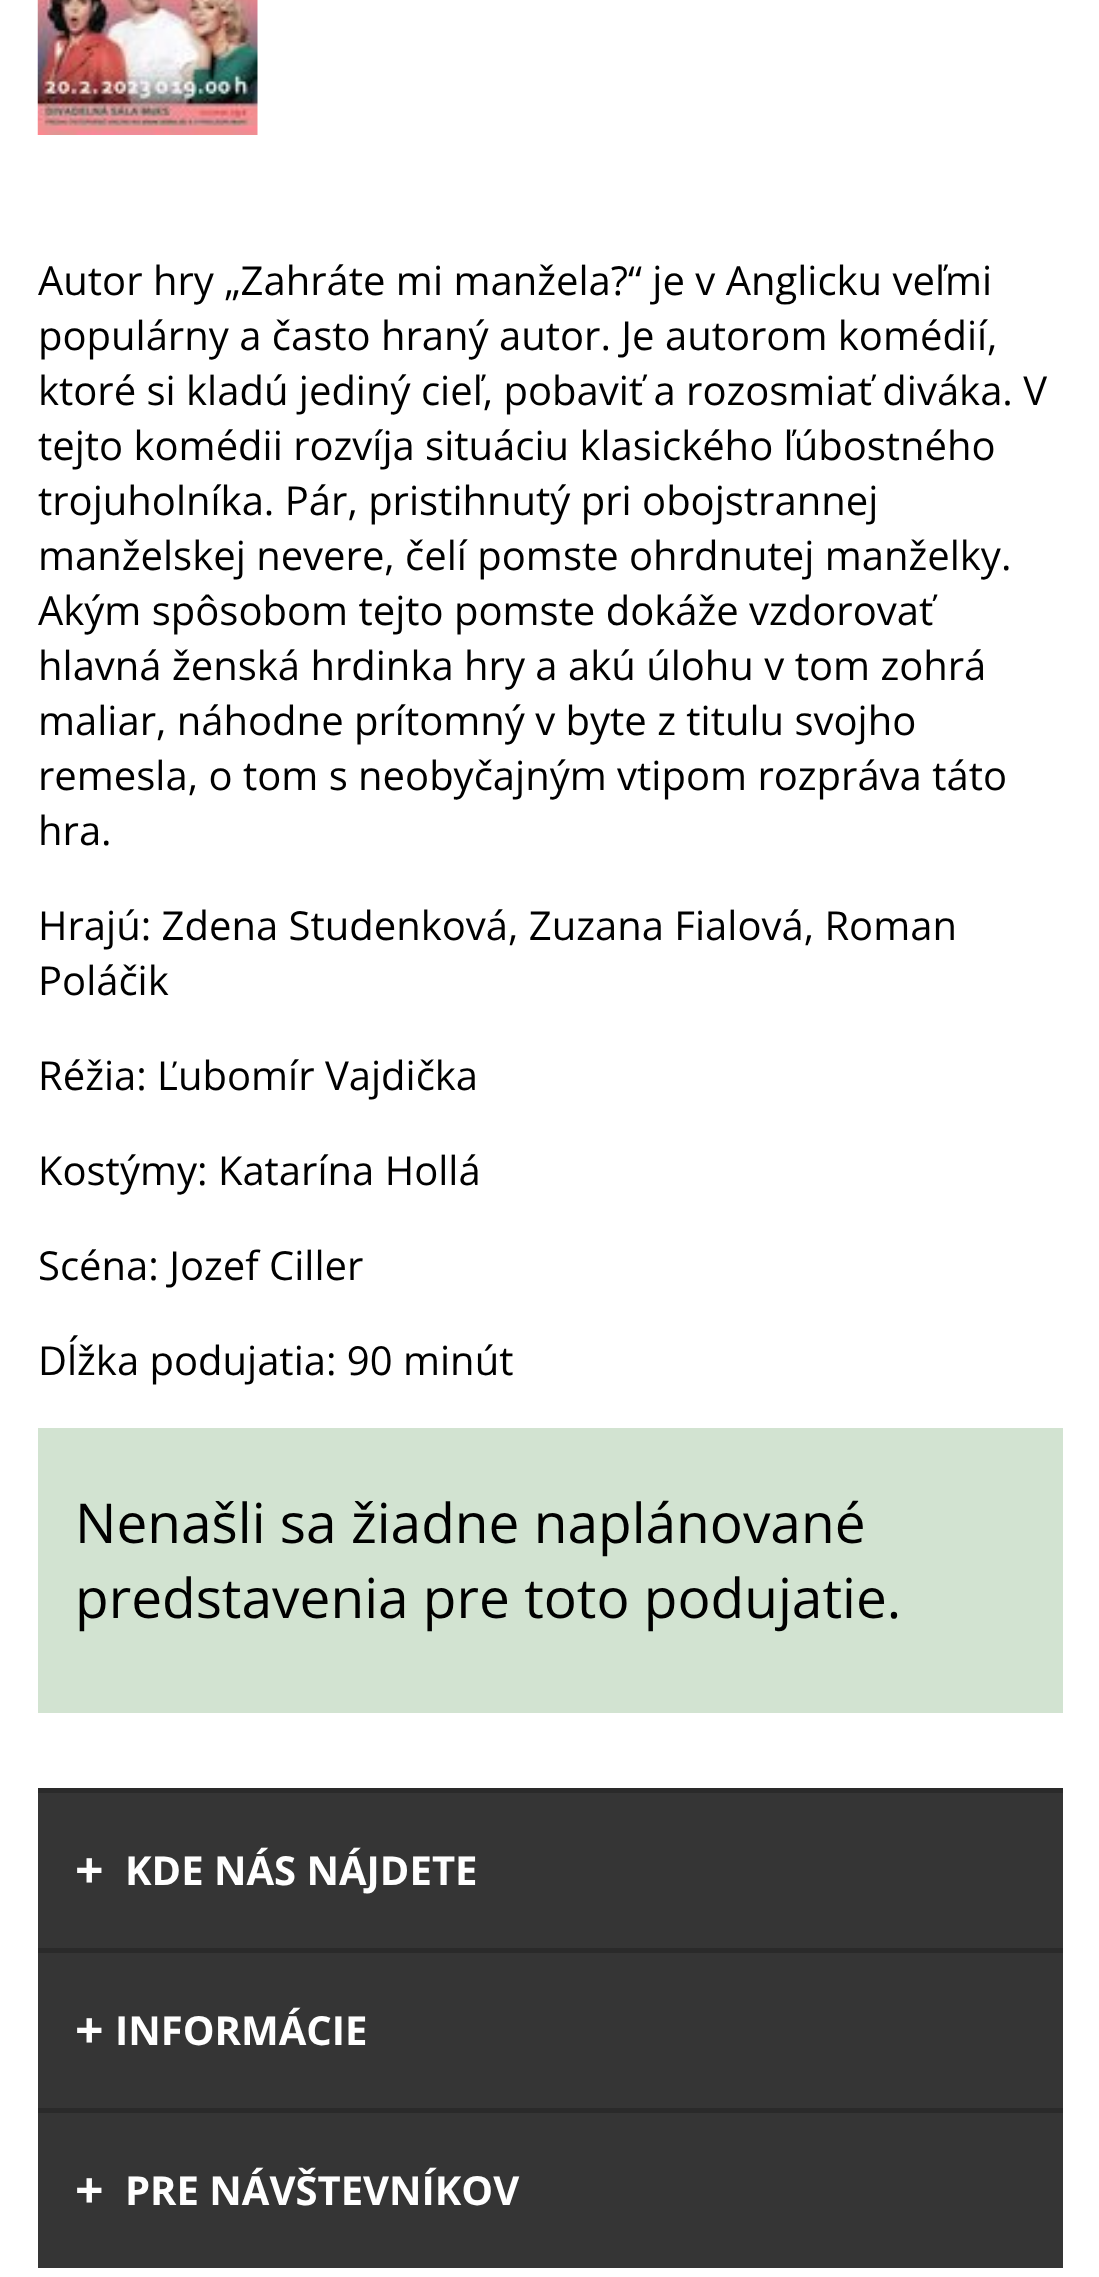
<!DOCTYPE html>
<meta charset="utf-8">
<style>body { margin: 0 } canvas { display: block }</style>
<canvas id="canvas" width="1099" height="2277"></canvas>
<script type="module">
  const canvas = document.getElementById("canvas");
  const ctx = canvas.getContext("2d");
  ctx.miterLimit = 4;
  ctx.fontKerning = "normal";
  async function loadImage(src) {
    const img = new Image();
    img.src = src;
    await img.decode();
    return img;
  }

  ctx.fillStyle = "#ffffff";
  ctx.fillRect(0, 0, 1099, 2277);
  ctx.drawImage(await loadImage("img1.png"), 37, 0, 221, 135);
  ctx.font = "40px Open Sans";
  ctx.fillStyle = "#000000";
  ctx.fillText("Autor hry „Zahráte mi manžela?“ je v Anglicku veľmi", 38, 295);
  ctx.fillText("populárny a často hraný autor. Je autorom komédií,", 38, 350);
  ctx.fillText("ktoré si kladú jediný cieľ, pobaviť a rozosmiať diváka. V", 38, 405);
  ctx.fillText("tejto komédii rozvíja situáciu klasického ľúbostného", 38, 460);
  ctx.fillText("trojuholníka. Pár, pristihnutý pri obojstrannej", 38, 515);
  ctx.fillText("manželskej nevere, čelí pomste ohrdnutej manželky.", 38, 570);
  ctx.fillText("Akým spôsobom tejto pomste dokáže vzdorovať", 38, 625);
  ctx.fillText("hlavná ženská hrdinka hry a akú úlohu v tom zohrá", 38, 680);
  ctx.fillText("maliar, náhodne prítomný v byte z titulu svojho", 38, 735);
  ctx.fillText("remesla, o tom s neobyčajným vtipom rozpráva táto", 38, 790);
  ctx.fillText("hra.", 38, 845);
  ctx.fillText("Hrajú: Zdena Studenková, Zuzana Fialová, Roman", 38, 940);
  ctx.fillText("Poláčik", 38, 995);
  ctx.fillText("Réžia: Ľubomír Vajdička", 38, 1090);
  ctx.fillText("Kostýmy: Katarína Hollá", 38, 1185);
  ctx.fillText("Scéna: Jozef Ciller", 38, 1280);
  ctx.fillText("Dĺžka podujatia: 90 minút", 38, 1375);
  ctx.fillStyle = "#d2e3d1";
  ctx.fillRect(38, 1428, 1025, 285);
  ctx.font = "55px Open Sans";
  ctx.fillStyle = "#000000";
  ctx.fillText("Nenašli sa žiadne naplánované", 75, 1543);
  ctx.fillText("predstavenia pre toto podujatie.", 75, 1618);
  ctx.fillStyle = "#353535";
  ctx.fillRect(38, 1793, 1025, 475);
  ctx.fillStyle = "#2a2a2a";
  ctx.fillRect(38, 1788, 1025, 5);
  ctx.font = "bold 50px Open Sans";
  ctx.fillStyle = "#ffffff";
  ctx.fillText("+", 75, 1888);
  ctx.font = "bold 40px Open Sans";
  ctx.fillText("KDE NÁS NÁJDETE", 125, 1885);
  ctx.fillStyle = "#2a2a2a";
  ctx.fillRect(38, 1948, 1025, 5);
  ctx.font = "bold 50px Open Sans";
  ctx.fillStyle = "#ffffff";
  ctx.fillText("+", 75, 2048);
  ctx.font = "bold 40px Open Sans";
  ctx.fillText("INFORMÁCIE", 115, 2045);
  ctx.fillStyle = "#2a2a2a";
  ctx.fillRect(38, 2108, 1025, 5);
  ctx.font = "bold 50px Open Sans";
  ctx.fillStyle = "#ffffff";
  ctx.fillText("+", 75, 2208);
  ctx.font = "bold 40px Open Sans";
  ctx.fillText("PRE NÁVŠTEVNÍKOV", 125, 2205);
</script>
